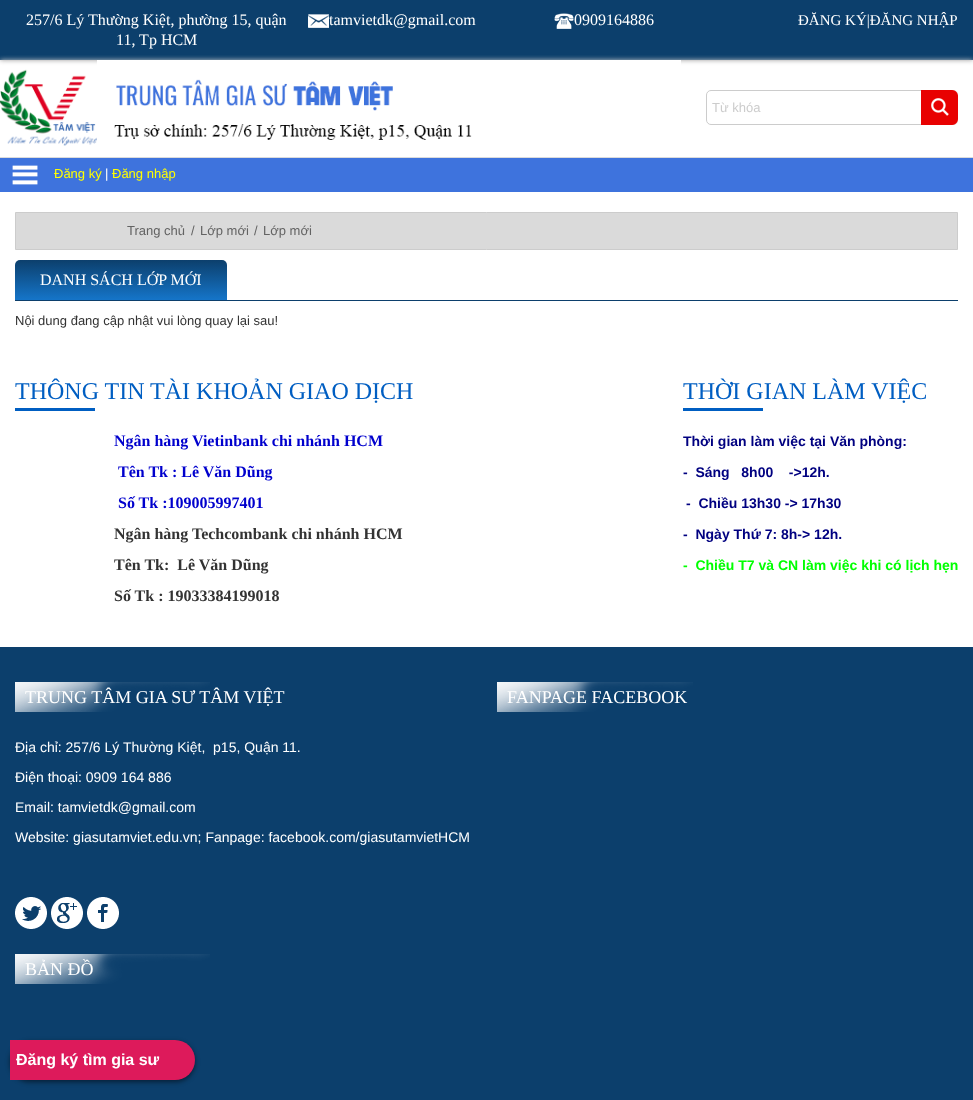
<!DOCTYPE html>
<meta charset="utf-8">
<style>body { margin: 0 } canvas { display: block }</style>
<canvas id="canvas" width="973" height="1100"></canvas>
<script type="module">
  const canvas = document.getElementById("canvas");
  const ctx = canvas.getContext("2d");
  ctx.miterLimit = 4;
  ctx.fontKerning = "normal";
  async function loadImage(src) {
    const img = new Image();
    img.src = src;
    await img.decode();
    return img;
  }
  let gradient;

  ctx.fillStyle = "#ffffff";
  ctx.fillRect(0, 0, 973, 1100);
  ctx.fillStyle = "#999898";
  ctx.filter = "blur(2.5px)";
  ctx.beginPath();
  ctx.rect(0, 0, 973, 60);
  ctx.fill();
  ctx.filter = "none";
  ctx.fillStyle = "#0c3f6c";
  ctx.fillRect(0, 0, 973, 60);
  ctx.font = "16px Liberation Serif";
  ctx.fillStyle = "#ffffff";
  ctx.fillText("257/6 Lý Thường Kiệt, phường 15, quận", 26, 25);
  ctx.fillText("11, Tp HCM", 116, 45);
  ctx.drawImage(await loadImage("img1.png"), 308, 14, 21, 14);
  ctx.fillText("tamvietdk@gmail.com", 329, 25);
  ctx.drawImage(await loadImage("img2.png"), 554, 13, 20, 16);
  ctx.fillText("0909164886", 574, 25);
  ctx.font = "15px Liberation Serif";
  ctx.fillText("ĐĂNG KÝ|ĐĂNG NHẬP", 798, 25);
  ctx.save();
  ctx.beginPath();
  ctx.rect(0, 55, 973, 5);
  ctx.clip();
  ctx.fillStyle = "#cccccc";
  ctx.filter = "blur(2.5px)";
  ctx.beginPath();
  ctx.rect(0, 60, 973, 98);
  ctx.fill();
  ctx.filter = "none";
  ctx.restore();
  ctx.fillStyle = "#dbdbdb";
  ctx.fillRect(0, 157, 973, 1);
  ctx.drawImage(await loadImage("img3.png"), 0, 69, 97, 77);
  ctx.drawImage(await loadImage("img4.png"), 97, 60, 584, 80);
  ctx.beginPath();
  ctx.roundRect(706.5, 90.5, 219, 34, [4.5, 0, 0, 4.5]);
  ctx.strokeStyle = "#cccccc";
  ctx.stroke();
  ctx.font = "13px Liberation Sans";
  ctx.fillStyle = "#cccccc";
  ctx.fillText("Từ khóa", 712, 112);
  ctx.drawImage(await loadImage("img5.png"), 921, 90, 37, 35);
  ctx.fillStyle = "#3e73dd";
  ctx.fillRect(0, 158, 973, 34);
  ctx.drawImage(await loadImage("img6.png"), 12, 165, 26, 20);
  ctx.fillStyle = "#ffff00";
  ctx.fillText("Đăng ký", 54, 178);
  ctx.fillStyle = "#ffffff";
  ctx.fillText("|", 105, 178);
  ctx.fillStyle = "#ffff00";
  ctx.fillText("Đăng nhập", 112, 178);
  ctx.fillStyle = "#dadada";
  ctx.beginPath();
  ctx.rect(15.5, 212.5, 942, 37);
  ctx.fill();
  ctx.stroke();
  ctx.fillStyle = "#636363";
  ctx.fillText("Trang chủ", 127, 235);
  ctx.fillText("/", 191, 235);
  ctx.fillText("Lớp mới", 200, 235);
  ctx.fillText("/", 254, 235);
  ctx.fillText("Lớp mới", 263, 235);
  ctx.fillStyle = "#0c3f6c";
  ctx.fillRect(15, 300, 943, 1);
  gradient = ctx.createLinearGradient(121, 260, 121, 300);
  gradient.addColorStop(0, "#0c3f6c");
  gradient.addColorStop(1, "#1575c9");
  ctx.fillStyle = gradient;
  ctx.beginPath();
  ctx.roundRect(15, 260, 212, 40, [5, 5, 0, 0]);
  ctx.fill();
  ctx.font = "16px Liberation Serif";
  ctx.fillStyle = "#ffffff";
  ctx.fillText("DANH SÁCH LỚP MỚI", 40, 285);
  ctx.font = "13px Liberation Sans";
  ctx.fillStyle = "#333333";
  ctx.fillText("Nội dung đang cập nhật vui lòng quay lại sau!", 15, 325);
  ctx.font = "24px Liberation Serif";
  ctx.fillStyle = "#005ec2";
  ctx.fillText("THÔNG TIN TÀI KHOẢN GIAO DỊCH", 15, 399);
  ctx.fillRect(15, 408, 80, 3);
  ctx.font = "bold 16px Liberation Serif";
  ctx.fillStyle = "#0000cd";
  ctx.fillText("Ngân hàng Vietinbank chi nhánh HCM", 114, 446);
  ctx.fillText("Tên Tk : Lê Văn Dũng", 118, 477);
  ctx.fillText("Số Tk :109005997401", 118, 508);
  ctx.fillStyle = "#333333";
  ctx.fillText("Ngân hàng Techcombank chi nhánh HCM", 114, 539);
  ctx.fillText("Tên Tk:  Lê Văn Dũng", 114, 570);
  ctx.fillText("Số Tk : 19033384199018", 114, 601);
  ctx.font = "24px Liberation Serif";
  ctx.fillStyle = "#005ec2";
  ctx.fillText("THỜI GIAN LÀM VIỆC", 683, 399);
  ctx.fillRect(683, 408, 80, 3);
  ctx.font = "bold 14px Liberation Sans";
  ctx.fillStyle = "#000080";
  ctx.fillText("Thời gian làm việc tại Văn phòng:", 683, 446);
  ctx.fillText("-  Sáng   8h00    ->12h.", 683, 477);
  ctx.fillText("-  Chiều 13h30 -> 17h30", 686, 508);
  ctx.fillText("-  Ngày Thứ 7: 8h-> 12h.", 683, 539);
  ctx.fillStyle = "#00ff00";
  ctx.fillText("-  Chiều T7 và CN làm việc khi có lịch hẹn", 683, 570);
  ctx.fillStyle = "#0c3f6c";
  ctx.fillRect(0, 647, 973, 453);
  ctx.drawImage(await loadImage("img7.png"), 15, 682, 195, 30);
  ctx.font = "18px Liberation Serif";
  ctx.fillStyle = "#ffffff";
  ctx.fillText("TRUNG TÂM GIA SƯ TÂM VIỆT", 25, 703);
  ctx.font = "14px Liberation Sans";
  ctx.fillText("Địa chỉ: 257/6 Lý Thường Kiệt,  p15, Quận 11.", 15, 752);
  ctx.fillText("Điện thoại: 0909 164 886", 15, 782);
  ctx.fillText("Email: tamvietdk@gmail.com", 15, 812);
  ctx.fillText("Website: giasutamviet.edu.vn; Fanpage: facebook.com/giasutamvietHCM", 15, 842);
  ctx.drawImage(await loadImage("img8.png"), 15, 897, 32, 32);
  ctx.drawImage(await loadImage("img9.png"), 51, 897, 32, 32);
  ctx.drawImage(await loadImage("img10.png"), 87, 897, 32, 32);
  ctx.drawImage(await loadImage("img11.png"), 497, 682, 196, 30);
  ctx.font = "18px Liberation Serif";
  ctx.fillText("FANPAGE FACEBOOK", 507, 703);
  ctx.drawImage(await loadImage("img7.png"), 15, 954, 195, 30);
  ctx.fillText("BẢN ĐỒ", 25, 975);
  ctx.fillStyle = "rgba(0, 0, 0, 0.5)";
  ctx.filter = "blur(2.5px)";
  ctx.beginPath();
  ctx.roundRect(10, 1042, 185, 40, 20);
  ctx.fill();
  ctx.filter = "none";
  ctx.fillStyle = "#dd1a5b";
  ctx.beginPath();
  ctx.roundRect(10, 1040, 185, 40, [0, 20, 20, 0]);
  ctx.fill();
  ctx.font = "bold 16px Liberation Sans";
  ctx.fillStyle = "#ffffff";
  ctx.fillText("Đăng ký tìm gia sư", 16, 1065);
</script>
